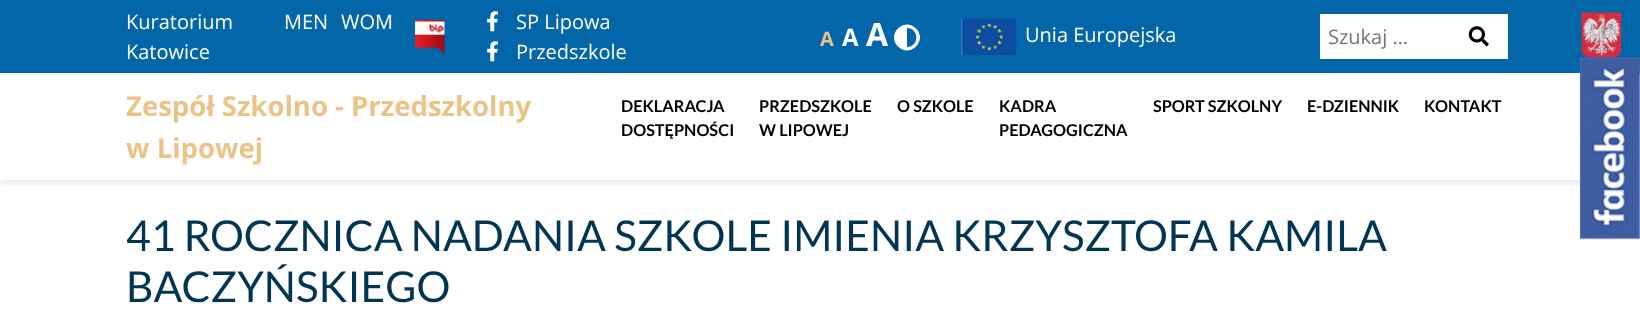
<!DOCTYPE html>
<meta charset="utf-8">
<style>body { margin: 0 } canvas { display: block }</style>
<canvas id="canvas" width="1640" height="334"></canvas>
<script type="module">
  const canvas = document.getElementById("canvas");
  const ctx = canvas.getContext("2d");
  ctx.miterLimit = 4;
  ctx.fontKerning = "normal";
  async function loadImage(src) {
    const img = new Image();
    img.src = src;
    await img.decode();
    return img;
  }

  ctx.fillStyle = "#ffffff";
  ctx.fillRect(0, 0, 1640, 334);
  ctx.save();
  ctx.beginPath();
  ctx.rect(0, 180, 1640, 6);
  ctx.clip();
  ctx.fillStyle = "rgba(0, 0, 0, 0.1)";
  ctx.filter = "blur(4px)";
  ctx.beginPath();
  ctx.rect(-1, 0, 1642, 183);
  ctx.fill();
  ctx.filter = "none";
  ctx.restore();
  ctx.fillStyle = "#0266a8";
  ctx.fillRect(0, 0, 1640, 73);
  ctx.font = "20px Open Sans";
  ctx.fillStyle = "#ffffff";
  ctx.fillText("Kuratorium", 126, 29);
  ctx.fillText("Katowice", 126, 59);
  ctx.fillText("MEN", 284, 29);
  ctx.fillText("WOM", 341, 29);
  ctx.drawImage(await loadImage("img1.png"), 415, 20, 30, 34);
  ctx.drawImage(await loadImage("img2.png"), 487, 11, 11, 21);
  ctx.fillText("SP Lipowa", 516, 29);
  ctx.drawImage(await loadImage("img2.png"), 487, 41, 11, 21);
  ctx.fillText("Przedszkole", 516, 59);
  ctx.font = "bold 20px Open Sans";
  ctx.fillStyle = "#eac486";
  ctx.fillText("A", 820, 46);
  ctx.font = "bold 24px Open Sans";
  ctx.fillStyle = "#ffffff";
  ctx.fillText("A", 842, 46);
  ctx.font = "bold 32px Open Sans";
  ctx.fillText("A", 866, 46);
  ctx.beginPath();
  ctx.moveTo(898, 46.5);
  ctx.bezierCurveTo(886, 34.5, 904, 16.5, 916, 28.5);
  ctx.bezierCurveTo(928, 40.5, 910, 58.5, 898, 46.5);
  ctx.closePath();
  ctx.moveTo(907, 47);
  ctx.bezierCurveTo(919.5, 47, 919.5, 28, 907, 28);
  ctx.closePath();
  ctx.fill();
  ctx.drawImage(await loadImage("img3.png"), 961, 18, 56, 37);
  ctx.font = "20px Open Sans";
  ctx.fillText("Unia Europejska", 1025, 42);
  ctx.fillRect(1320, 14, 188, 45);
  ctx.fillStyle = "#757575";
  ctx.fillText("Szukaj …", 1328, 44);
  ctx.drawImage(await loadImage("img4.png"), 1468, 26, 21, 21);
  ctx.drawImage(await loadImage("img5.png"), 1581, 12, 41, 47);
  ctx.font = "bold 27.5px Open Sans";
  ctx.fillStyle = "#eac486";
  ctx.fillText("Zespół Szkolno - Przedszkolny", 126, 116);
  ctx.fillText("w Lipowej", 126, 158);
  ctx.font = "bold 16.25px Lato";
  ctx.fillStyle = "#000000";
  ctx.fillText("DEKLARACJA", 621, 112);
  ctx.fillText("DOSTĘPNOŚCI", 621, 136);
  ctx.fillText("PRZEDSZKOLE", 759, 112);
  ctx.fillText("W LIPOWEJ", 759, 136);
  ctx.fillText("O SZKOLE", 897, 112);
  ctx.fillText("KADRA", 999, 112);
  ctx.fillText("PEDAGOGICZNA", 999, 136);
  ctx.fillText("SPORT SZKOLNY", 1153, 112);
  ctx.fillText("E-DZIENNIK", 1307, 112);
  ctx.fillText("KONTAKT", 1424, 112);
  ctx.drawImage(await loadImage("img6.png"), 1580, 57, 60, 183);
  ctx.font = "42.5px Lato";
  ctx.fillStyle = "#003554";
  ctx.fillText("41 ROCZNICA NADANIA SZKOLE IMIENIA KRZYSZTOFA KAMILA", 126, 251);
  ctx.fillText("BACZYŃSKIEGO", 126, 302);
</script>
